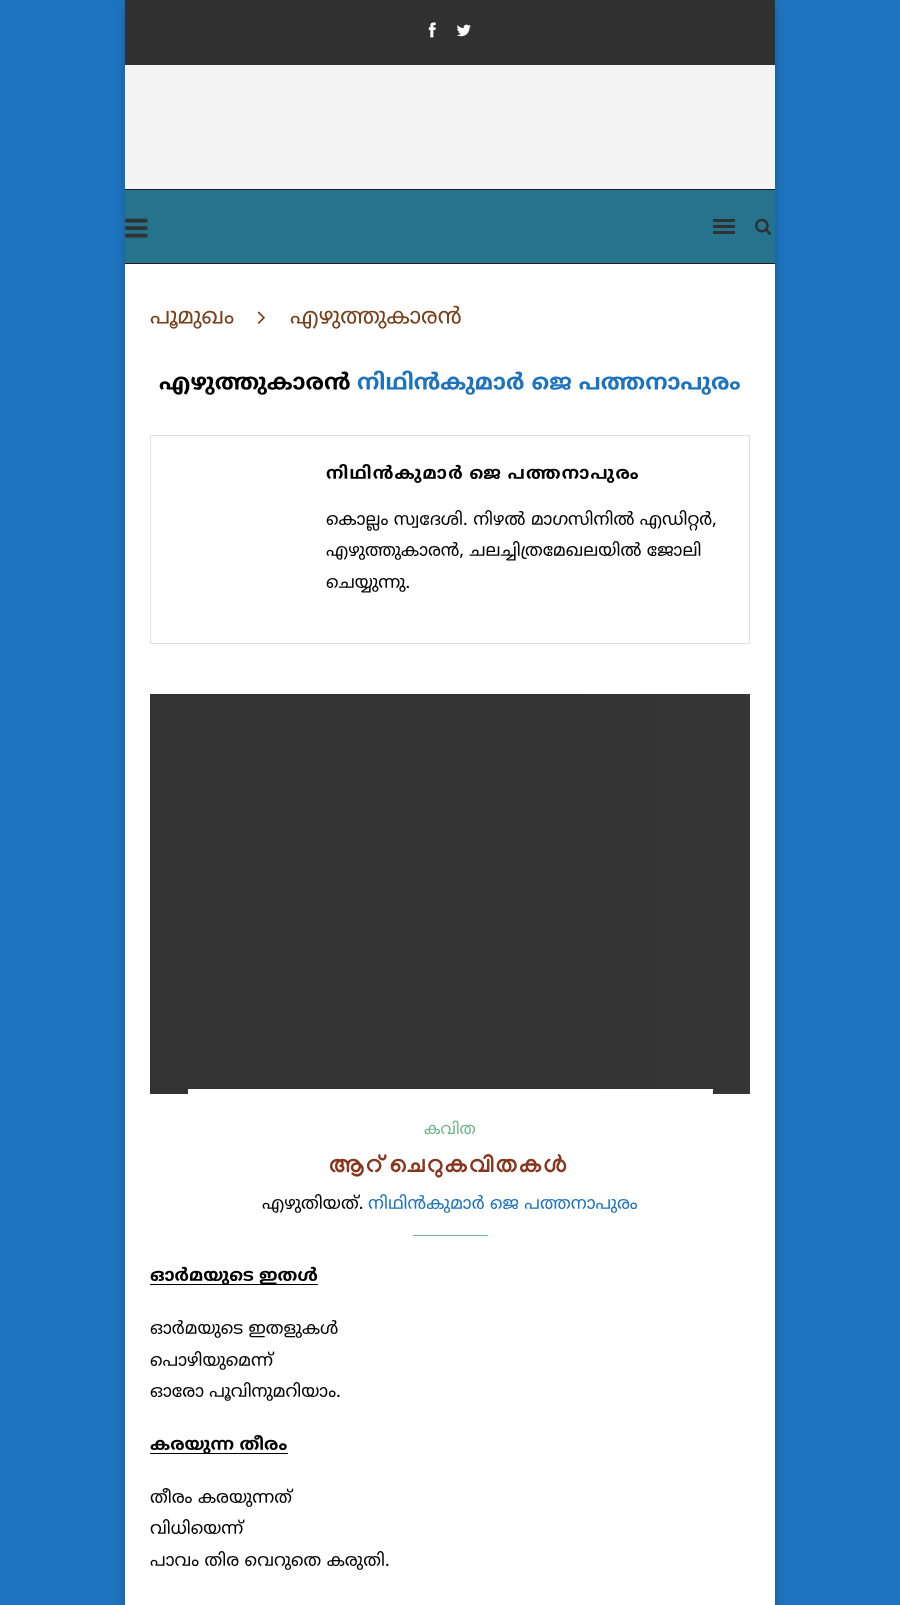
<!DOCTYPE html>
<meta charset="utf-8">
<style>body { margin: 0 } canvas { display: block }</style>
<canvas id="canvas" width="900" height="1605"></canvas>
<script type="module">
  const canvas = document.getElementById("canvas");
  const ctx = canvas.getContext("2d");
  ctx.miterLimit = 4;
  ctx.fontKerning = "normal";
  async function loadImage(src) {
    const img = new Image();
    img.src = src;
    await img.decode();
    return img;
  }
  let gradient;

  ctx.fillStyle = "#1e73be";
  ctx.fillRect(0, 0, 900, 1605);
  ctx.fillStyle = "rgba(0, 0, 0, 0.2)";
  ctx.filter = "blur(5px)";
  ctx.beginPath();
  ctx.rect(125, 6, 650, 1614);
  ctx.fill();
  ctx.filter = "none";
  ctx.fillStyle = "#ffffff";
  ctx.fillRect(125, 264, 650, 1341);
  ctx.fillStyle = "#313131";
  ctx.fillRect(125, 0, 650, 65);
  ctx.drawImage(await loadImage("img1.png"), 428, 22, 8, 16);
  ctx.drawImage(await loadImage("img2.png"), 457, 24, 14, 13);
  ctx.fillStyle = "#f4f4f4";
  ctx.fillRect(125, 65, 650, 124);
  ctx.fillStyle = "#26738e";
  ctx.fillRect(125, 190, 650, 73);
  ctx.fillStyle = "#1c1c1c";
  ctx.fillRect(125, 189, 650, 1);
  ctx.fillRect(125, 263, 650, 1);
  ctx.drawImage(await loadImage("img3.png"), 125, 218, 23, 20);
  ctx.fillStyle = "#313131";
  ctx.fillRect(713, 219, 22, 3);
  ctx.fillRect(713, 231, 22, 3);
  ctx.fillRect(713, 225, 22, 3);
  ctx.drawImage(await loadImage("img4.png"), 755, 218, 17, 17);
  ctx.font = "22.5px Noto Sans Malayalam UI";
  ctx.fillStyle = "#77401b";
  ctx.fillText("പൂമുഖം", 150, 325);
  ctx.drawImage(await loadImage("img5.png"), 257, 311, 8, 13);
  ctx.fillText("എഴുത്തുകാരൻ", 290, 325);
  ctx.font = "bold 22.5px Noto Sans Malayalam UI";
  ctx.fillStyle = "#000000";
  ctx.fillText("എഴുത്തുകാരൻ", 159, 391);
  ctx.fillStyle = "#1e73be";
  ctx.fillText("നിഥിൻകുമാർ ജെ പത്തനാപുരം", 357, 391);
  ctx.strokeStyle = "#e0e0e0";
  ctx.strokeRect(150.5, 435.5, 599, 208);
  ctx.letterSpacing = "1.25px";
  ctx.wordSpacing = "-1px";
  ctx.font = "bold 17.5px Noto Sans Malayalam UI";
  ctx.fillStyle = "#000000";
  ctx.fillText("നിഥിൻകുമാർ ജെ പത്തനാപുരം", 326, 480);
  ctx.letterSpacing = "0px";
  ctx.wordSpacing = "0px";
  ctx.font = "17.5px Noto Sans Malayalam UI";
  ctx.fillText("കൊല്ലം സ്വദേശി. നിഴൽ മാഗസിനിൽ എഡിറ്റർ,", 326, 526);
  ctx.fillText("എഴുത്തുകാരൻ, ചലച്ചിത്രമേഖലയിൽ ജോലി", 326, 557);
  ctx.fillText("ചെയ്യുന്നു.", 326, 589);
  gradient = ctx.createLinearGradient(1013, 894, -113, 894);
  gradient.addColorStop(0, "#333333");
  gradient.addColorStop(0.15, "#383838");
  gradient.addColorStop(0.4, "#333333");
  gradient.addColorStop(1, "#333333");
  ctx.fillStyle = gradient;
  ctx.fillRect(150, 694, 600, 400);
  ctx.fillStyle = "#ffffff";
  ctx.fillRect(188, 1089, 525, 5);
  ctx.font = "16px Noto Sans Malayalam UI";
  ctx.fillStyle = "#6eb48c";
  ctx.fillText("കവിത", 424, 1135);
  ctx.letterSpacing = "1.25px";
  ctx.wordSpacing = "-2px";
  ctx.font = "bold 25px Manjari";
  ctx.fillStyle = "#89361f";
  ctx.fillText("ആറ് ചെറുകവിതകൾ", 329, 1172);
  ctx.letterSpacing = "0px";
  ctx.wordSpacing = "0px";
  ctx.font = "17.5px Noto Sans Malayalam UI";
  ctx.fillStyle = "#000000";
  ctx.fillText("എഴുതിയത്.", 262, 1210);
  ctx.fillStyle = "#1e73be";
  ctx.fillText("നിഥിൻകുമാർ ജെ പത്തനാപുരം", 368, 1210);
  ctx.fillStyle = "#6eb48c";
  ctx.fillRect(413, 1235, 75, 1);
  ctx.fillStyle = "#000000";
  ctx.fillRect(150, 1284, 168, 1);
  ctx.font = "bold 17.5px Noto Sans Malayalam UI";
  ctx.fillText("ഓർമയുടെ ഇതൾ", 150, 1282);
  ctx.font = "17.5px Noto Sans Malayalam UI";
  ctx.fillText("ഓർമയുടെ ഇതളുകൾ", 150, 1335);
  ctx.fillText("പൊഴിയുമെന്ന്", 150, 1367);
  ctx.fillText("ഓരോ പൂവിനുമറിയാം.", 150, 1398);
  ctx.fillRect(150, 1453, 138, 1);
  ctx.font = "bold 17.5px Noto Sans Malayalam UI";
  ctx.fillText("കരയുന്ന തീരം", 150, 1451);
  ctx.font = "17.5px Noto Sans Malayalam UI";
  ctx.fillText("തീരം കരയുന്നത്", 150, 1504);
  ctx.fillText("വിധിയെന്ന്", 150, 1535);
  ctx.fillText("പാവം തിര വെറുതെ കരുതി.", 150, 1567);
</script>
